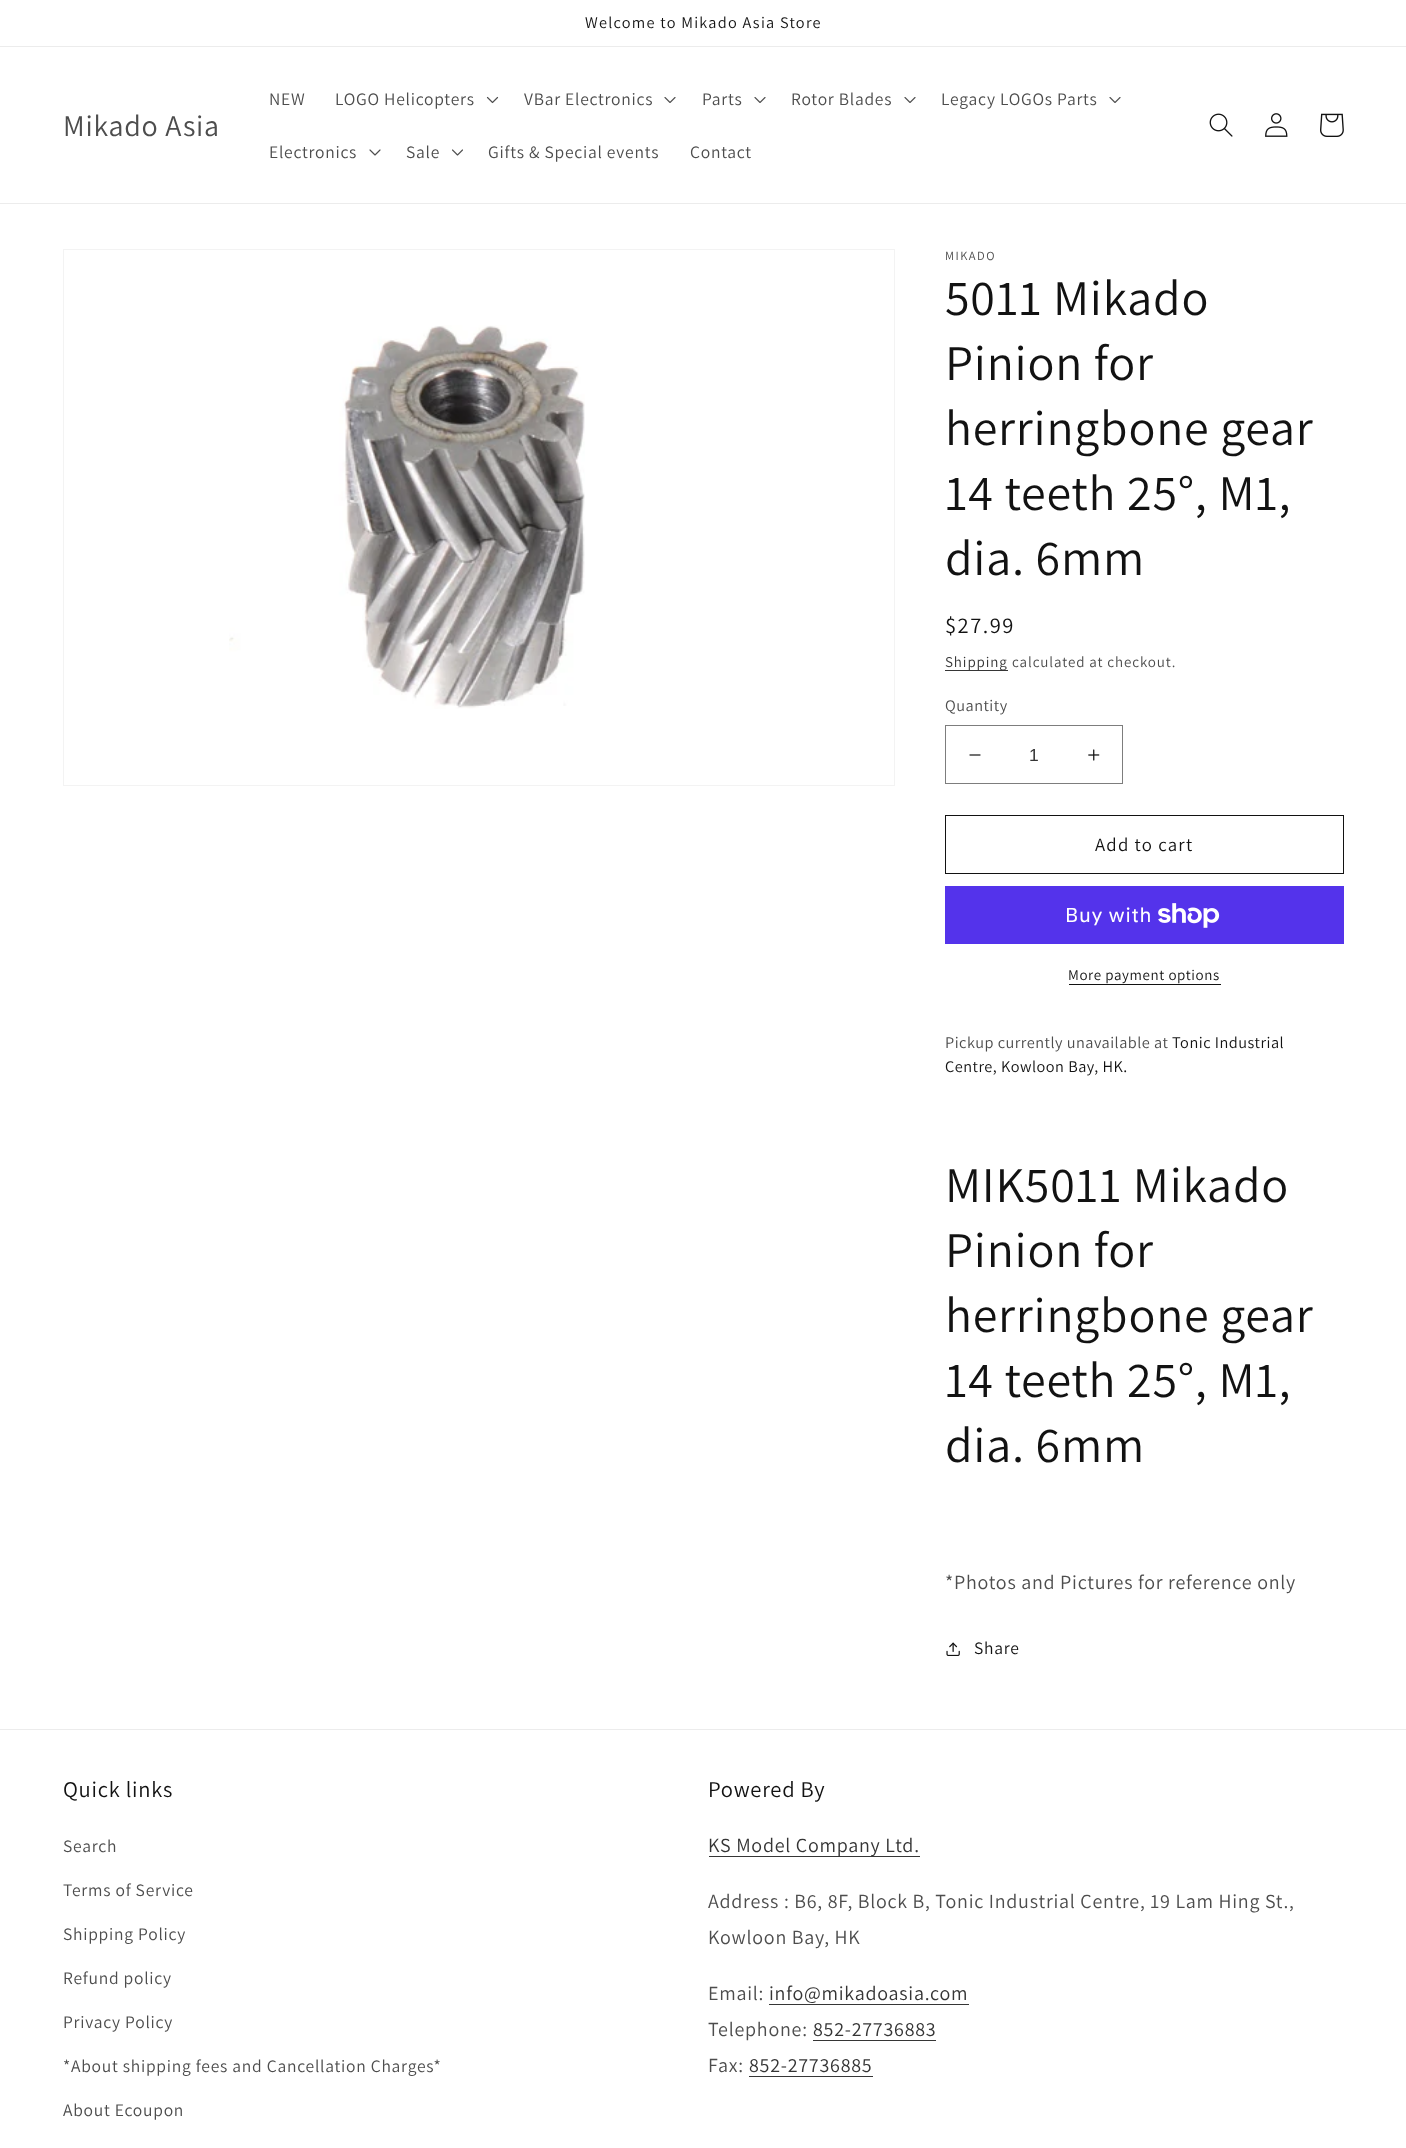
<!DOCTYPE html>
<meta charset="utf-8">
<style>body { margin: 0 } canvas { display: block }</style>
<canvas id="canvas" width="1406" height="2148"></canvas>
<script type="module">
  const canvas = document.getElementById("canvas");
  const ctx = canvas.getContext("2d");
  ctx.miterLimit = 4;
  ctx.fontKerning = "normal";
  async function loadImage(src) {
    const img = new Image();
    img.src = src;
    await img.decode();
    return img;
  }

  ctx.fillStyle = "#ffffff";
  ctx.fillRect(0, 0, 1406, 2148);
  ctx.fillStyle = "#ececec";
  ctx.fillRect(0, 46, 1406, 1);
  ctx.letterSpacing = "1.25px";
  ctx.font = "16.25px Assistant";
  ctx.fillStyle = "#121212";
  ctx.fillText("Welcome to Mikado Asia Store", 585, 28);
  ctx.fillStyle = "#ececec";
  ctx.fillRect(0, 203, 1406, 1);
  ctx.letterSpacing = "0.75px";
  ctx.font = "30px Assistant";
  ctx.fillStyle = "#4d4d4d";
  ctx.fillText("Mikado Asia", 63, 136);
  ctx.font = "17.5px Assistant";
  ctx.fillText("NEW", 269, 105);
  ctx.fillText("LOGO Helicopters", 335, 105);
  ctx.drawImage(await loadImage("img1.png"), 486, 96, 13, 8);
  ctx.fillText("VBar Electronics", 524, 105);
  ctx.drawImage(await loadImage("img2.png"), 664, 97, 12, 6);
  ctx.fillText("Parts", 702, 105);
  ctx.drawImage(await loadImage("img2.png"), 754, 97, 12, 6);
  ctx.fillText("Rotor Blades", 791, 105);
  ctx.drawImage(await loadImage("img2.png"), 904, 97, 12, 6);
  ctx.fillText("Legacy LOGOs Parts", 941, 105);
  ctx.drawImage(await loadImage("img2.png"), 1109, 97, 12, 6);
  ctx.fillText("Electronics", 269, 158);
  ctx.drawImage(await loadImage("img3.png"), 369, 149, 12, 7);
  ctx.fillText("Sale", 406, 158);
  ctx.drawImage(await loadImage("img4.png"), 452, 149, 11, 7);
  ctx.fillText("Gifts & Special events", 488, 158);
  ctx.fillText("Contact", 690, 158);
  ctx.drawImage(await loadImage("img5.png"), 1209, 113, 24, 24);
  ctx.drawImage(await loadImage("img6.png"), 1265, 113, 23, 24);
  ctx.drawImage(await loadImage("img7.png"), 1320, 113, 24, 24);
  ctx.strokeStyle = "#f3f3f3";
  ctx.strokeRect(63.5, 249.5, 831, 536);
  ctx.drawImage(await loadImage("img8.png"), 229, 325, 356, 384);
  ctx.letterSpacing = "1.5px";
  ctx.font = "12.5px Assistant";
  ctx.fillText("MIKADO", 945, 260);
  ctx.letterSpacing = "0.75px";
  ctx.font = "50px Assistant";
  ctx.fillStyle = "#121212";
  ctx.fillText("5011 Mikado", 945, 315);
  ctx.fillText("Pinion for", 945, 380);
  ctx.fillText("herringbone gear", 945, 445);
  ctx.fillText("14 teeth 25°, M1,", 945, 510);
  ctx.fillText("dia. 6mm", 945, 575);
  ctx.letterSpacing = "1.5px";
  ctx.font = "22.5px Assistant";
  ctx.fillText("$27.99", 945, 633);
  ctx.fillStyle = "#363636";
  ctx.fillRect(945, 670, 63, 1);
  ctx.letterSpacing = "0.9px";
  ctx.font = "15px Assistant";
  ctx.fillStyle = "#353535";
  ctx.fillText("Shipping", 945, 667);
  ctx.fillStyle = "#4d4d4d";
  ctx.fillText("calculated at checkout.", 1012, 667);
  ctx.letterSpacing = "0.5px";
  ctx.font = "16.25px Assistant";
  ctx.fillText("Quantity", 945, 711);
  ctx.drawImage(await loadImage("img9.png"), 969, 754, 12, 2);
  ctx.drawImage(await loadImage("img10.png"), 1088, 749, 12, 12);
  ctx.strokeStyle = "#7d7d7d";
  ctx.strokeRect(945.5, 725.5, 177, 58);
  ctx.letterSpacing = "0px";
  ctx.font = "17.5px Liberation Sans";
  ctx.fillStyle = "#353535";
  ctx.fillText("1", 1029, 761);
  ctx.strokeStyle = "#121212";
  ctx.strokeRect(945.5, 815.5, 398, 58);
  ctx.letterSpacing = "1.25px";
  ctx.font = "18.75px Assistant";
  ctx.fillStyle = "#121212";
  ctx.fillText("Add to cart", 1095, 851);
  ctx.fillStyle = "#5433eb";
  ctx.fillRect(945, 886, 399, 58);
  ctx.letterSpacing = "0.75px";
  ctx.font = "20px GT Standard";
  ctx.fillStyle = "#ffffff";
  ctx.fillText("Buy with", 1065, 922);
  ctx.drawImage(await loadImage("img11.png"), 1158, 903, 62, 25);
  ctx.letterSpacing = "0.6px";
  ctx.font = "15px Assistant";
  ctx.fillStyle = "#121212";
  ctx.fillText("More payment options", 1068, 980);
  ctx.fillRect(1069, 984, 152, 1);
  ctx.letterSpacing = "0.5px";
  ctx.font = "16.25px Assistant";
  ctx.fillStyle = "#4d4d4d";
  ctx.fillText("Pickup currently unavailable at", 945, 1048);
  ctx.fillStyle = "#121212";
  ctx.fillText("Tonic Industrial", 1172, 1048);
  ctx.fillText("Centre, Kowloon Bay, HK.", 945, 1072);
  ctx.letterSpacing = "0.75px";
  ctx.font = "50px Assistant";
  ctx.fillText("MIK5011 Mikado", 945, 1202);
  ctx.fillText("Pinion for", 945, 1267);
  ctx.fillText("herringbone gear", 945, 1332);
  ctx.fillText("14 teeth 25°, M1,", 945, 1397);
  ctx.fillText("dia. 6mm", 945, 1462);
  ctx.font = "20px Assistant";
  ctx.fillStyle = "#4d4d4d";
  ctx.fillText("*Photos and Pictures for reference only", 945, 1589);
  ctx.drawImage(await loadImage("img12.png"), 946, 1642, 14, 14);
  ctx.font = "17.5px Assistant";
  ctx.fillStyle = "#121212";
  ctx.fillText("Share", 974, 1654);
  ctx.fillStyle = "#ececec";
  ctx.fillRect(0, 1729, 1406, 1);
  ctx.font = "22.5px Assistant";
  ctx.fillStyle = "#121212";
  ctx.fillText("Quick links", 63, 1797);
  ctx.font = "17.5px Assistant";
  ctx.fillStyle = "#4d4d4d";
  ctx.fillText("Search", 63, 1852);
  ctx.fillText("Terms of Service", 63, 1896);
  ctx.fillText("Shipping Policy", 63, 1940);
  ctx.fillText("Refund policy", 63, 1984);
  ctx.fillText("Privacy Policy", 63, 2028);
  ctx.fillText("*About shipping fees and Cancellation Charges*", 63, 2072);
  ctx.fillText("About Ecoupon", 63, 2116);
  ctx.font = "22.5px Assistant";
  ctx.fillStyle = "#121212";
  ctx.fillText("Powered By", 708, 1797);
  ctx.fillStyle = "#363636";
  ctx.fillRect(709, 1856, 211, 1);
  ctx.font = "20px Assistant";
  ctx.fillStyle = "#353535";
  ctx.fillText("KS Model Company Ltd.", 708, 1852);
  ctx.fillStyle = "#4d4d4d";
  ctx.fillText("Address : B6, 8F, Block B, Tonic Industrial Centre, 19 Lam Hing St.,", 708, 1908);
  ctx.fillText("Kowloon Bay, HK", 708, 1944);
  ctx.fillText("Email:", 708, 2000);
  ctx.fillStyle = "#353535";
  ctx.fillText("info@mikadoasia.com", 769, 2000);
  ctx.fillStyle = "#363636";
  ctx.fillRect(769, 2004, 200, 1);
  ctx.fillStyle = "#4d4d4d";
  ctx.fillText("Telephone:", 708, 2036);
  ctx.fillStyle = "#353535";
  ctx.fillText("852-27736883", 813, 2036);
  ctx.fillStyle = "#363636";
  ctx.fillRect(813, 2040, 123, 1);
  ctx.fillStyle = "#4d4d4d";
  ctx.fillText("Fax:", 708, 2072);
  ctx.fillStyle = "#353535";
  ctx.fillText("852-27736885", 749, 2072);
  ctx.fillStyle = "#363636";
  ctx.fillRect(749, 2076, 124, 1);
</script>
